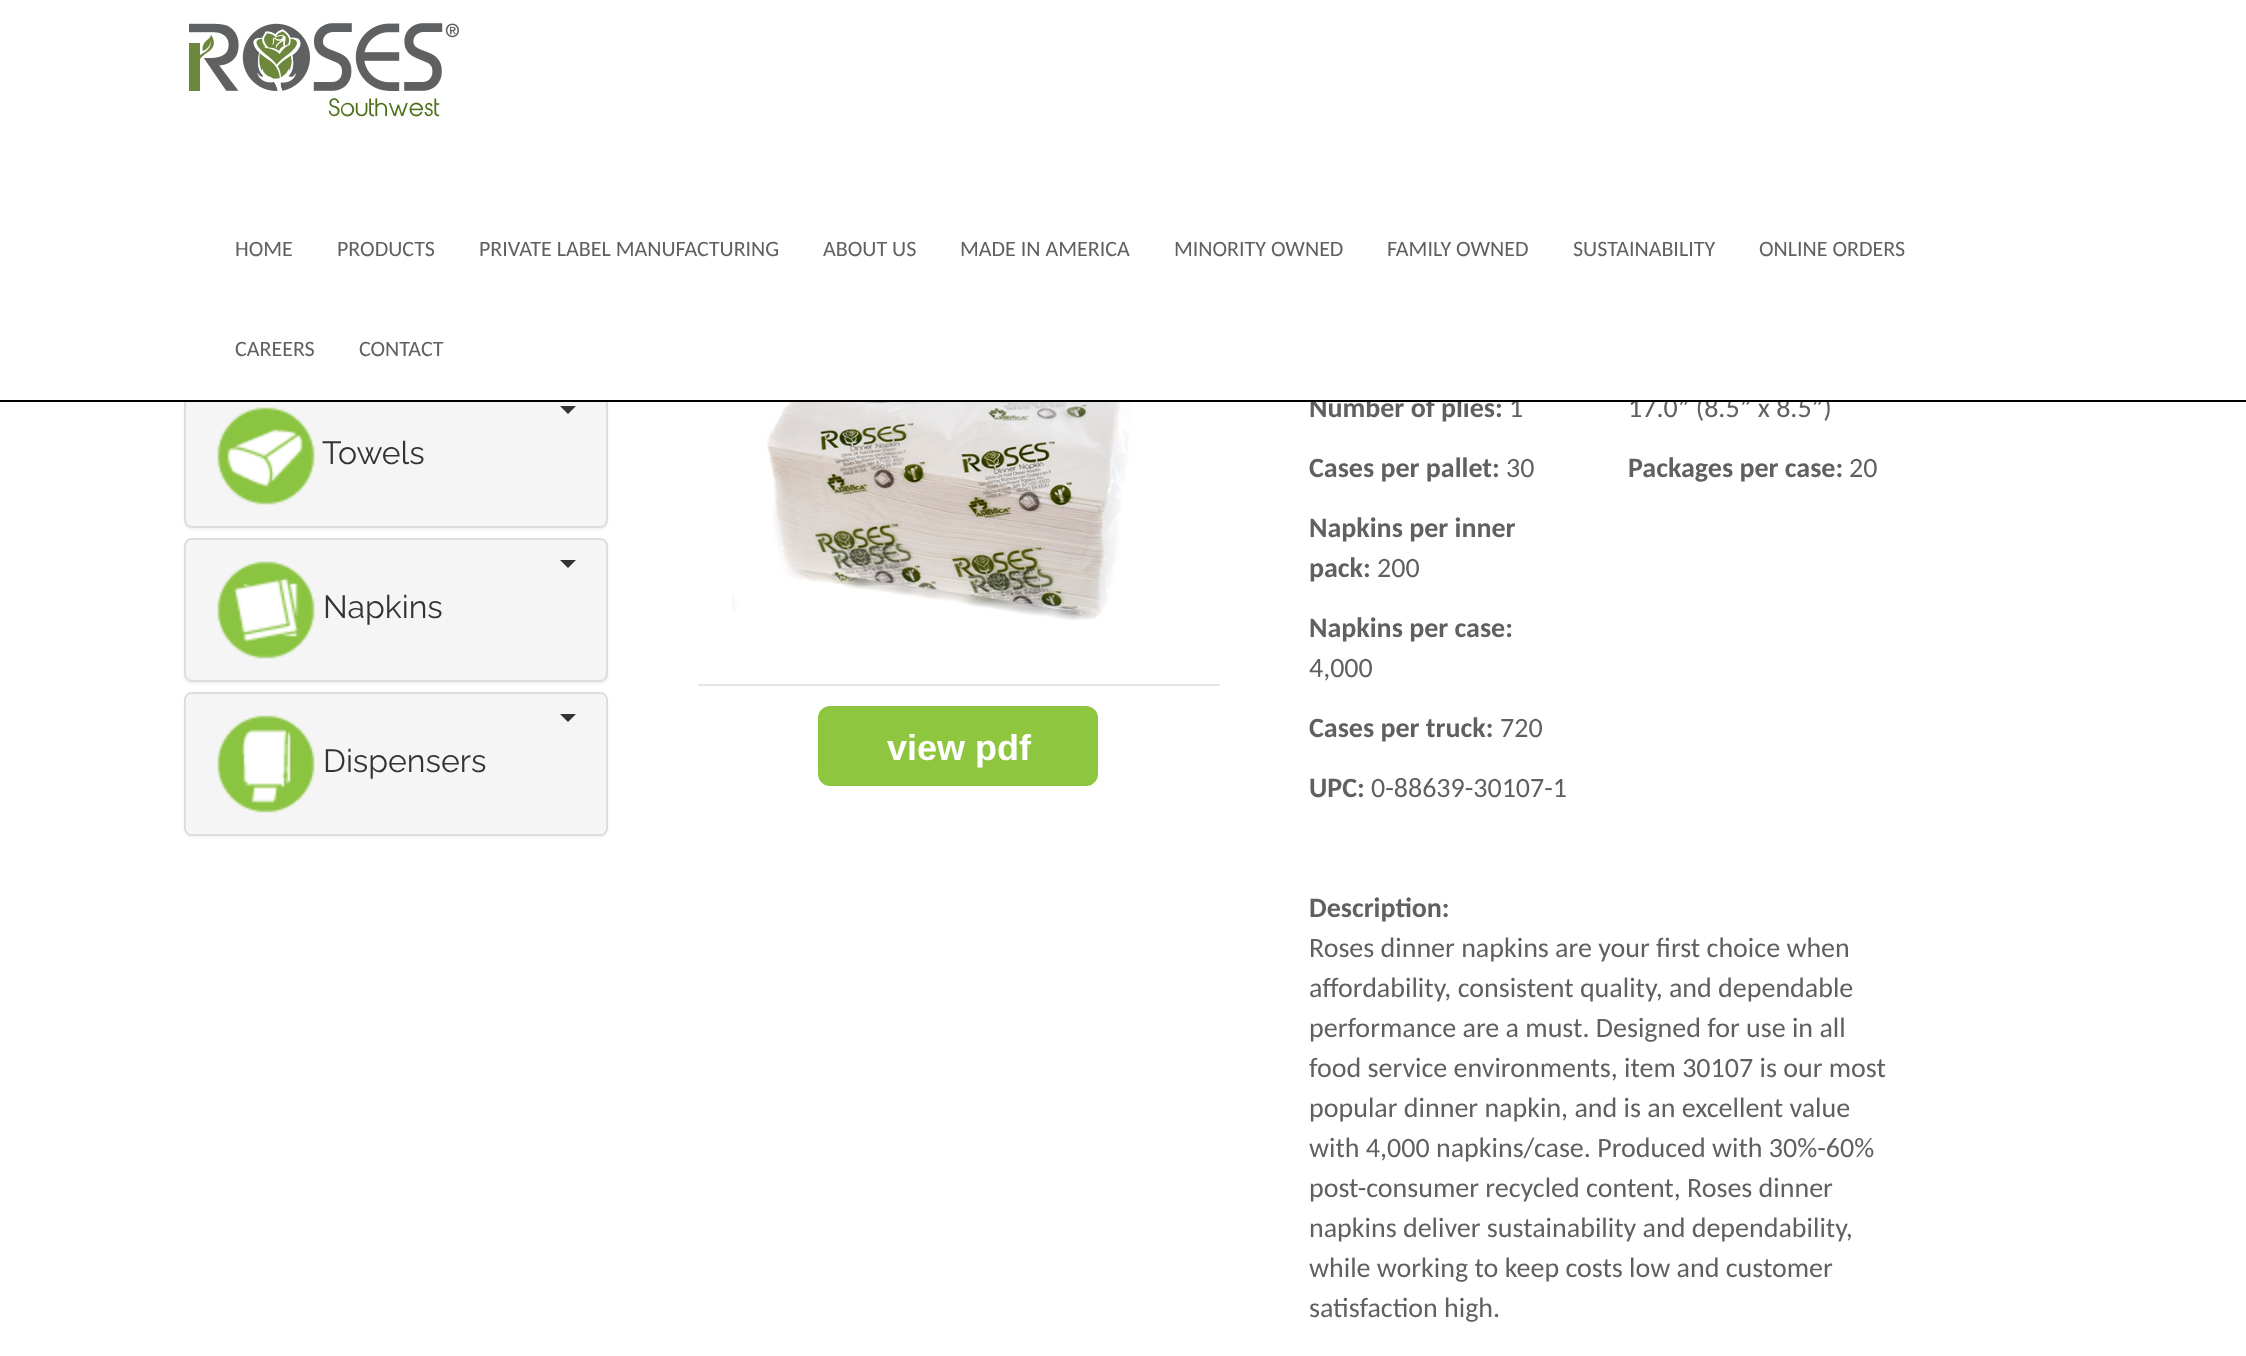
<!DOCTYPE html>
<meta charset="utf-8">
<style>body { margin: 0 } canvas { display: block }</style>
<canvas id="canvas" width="2246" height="1356"></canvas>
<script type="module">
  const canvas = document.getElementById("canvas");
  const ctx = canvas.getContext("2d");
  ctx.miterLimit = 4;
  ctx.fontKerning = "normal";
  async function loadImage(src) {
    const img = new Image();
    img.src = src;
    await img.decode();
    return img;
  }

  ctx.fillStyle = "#ffffff";
  ctx.fillRect(0, 0, 2246, 1356);
  ctx.fillStyle = "rgba(0, 0, 0, 0.05)";
  ctx.filter = "blur(1px)";
  ctx.beginPath();
  ctx.roundRect(184, 386, 424, 144, 8);
  ctx.fill();
  ctx.filter = "none";
  ctx.beginPath();
  ctx.roundRect(185, 385, 422, 142, 7);
  ctx.strokeStyle = "#dddddd";
  ctx.lineWidth = 2;
  ctx.stroke();
  ctx.fillStyle = "#f5f5f5";
  ctx.beginPath();
  ctx.roundRect(186, 386, 420, 140, 6);
  ctx.fill();
  ctx.font = "bold 28px Carlito";
  ctx.fillStyle = "#5f6062";
  ctx.fillText("Number of plies:", 1309, 417);
  ctx.font = "28px Carlito";
  ctx.fillText("1", 1509, 417);
  ctx.fillText("17.0” (8.5” x 8.5”)", 1628, 417);
  ctx.fillStyle = "#ffffff";
  ctx.fillRect(183, 384, 1645, 16);
  ctx.fillStyle = "#000000";
  ctx.fillRect(0, 400, 2246, 2);
  ctx.drawImage(await loadImage("img1.png"), 189, 23, 270, 94);
  ctx.font = "22px Carlito";
  ctx.fillStyle = "#5f6062";
  ctx.fillText("HOME", 235, 256);
  ctx.fillText("PRODUCTS", 337, 256);
  ctx.fillText("PRIVATE LABEL MANUFACTURING", 479, 256);
  ctx.fillText("ABOUT US", 823, 256);
  ctx.fillText("MADE IN AMERICA", 960, 256);
  ctx.fillText("MINORITY OWNED", 1174, 256);
  ctx.fillText("FAMILY OWNED", 1387, 256);
  ctx.fillText("SUSTAINABILITY", 1573, 256);
  ctx.fillText("ONLINE ORDERS", 1759, 256);
  ctx.fillText("CAREERS", 235, 356);
  ctx.fillText("CONTACT", 359, 356);
  ctx.drawImage(await loadImage("img2.png"), 217, 407, 98, 98);
  ctx.font = "100 32px Raleway";
  ctx.fillStyle = "#333333";
  ctx.fillText("Towels", 322, 464);
  ctx.beginPath();
  ctx.moveTo(560, 406);
  ctx.lineTo(576, 406);
  ctx.lineTo(568, 414);
  ctx.closePath();
  ctx.fill();
  ctx.fillStyle = "rgba(0, 0, 0, 0.05)";
  ctx.filter = "blur(1px)";
  ctx.beginPath();
  ctx.roundRect(184, 540, 424, 144, 8);
  ctx.fill();
  ctx.filter = "none";
  ctx.beginPath();
  ctx.roundRect(185, 539, 422, 142, 7);
  ctx.stroke();
  ctx.fillStyle = "#f5f5f5";
  ctx.beginPath();
  ctx.roundRect(186, 540, 420, 140, 6);
  ctx.fill();
  ctx.drawImage(await loadImage("img3.png"), 217, 561, 98, 98);
  ctx.fillStyle = "#333333";
  ctx.fillText("Napkins", 323, 618);
  ctx.beginPath();
  ctx.moveTo(560, 560);
  ctx.lineTo(576, 560);
  ctx.lineTo(568, 568);
  ctx.closePath();
  ctx.fill();
  ctx.fillStyle = "rgba(0, 0, 0, 0.05)";
  ctx.filter = "blur(1px)";
  ctx.beginPath();
  ctx.roundRect(184, 694, 424, 144, 8);
  ctx.fill();
  ctx.filter = "none";
  ctx.beginPath();
  ctx.roundRect(185, 693, 422, 142, 7);
  ctx.stroke();
  ctx.fillStyle = "#f5f5f5";
  ctx.beginPath();
  ctx.roundRect(186, 694, 420, 140, 6);
  ctx.fill();
  ctx.drawImage(await loadImage("img4.png"), 217, 715, 98, 98);
  ctx.fillStyle = "#333333";
  ctx.fillText("Dispensers", 323, 772);
  ctx.beginPath();
  ctx.moveTo(560, 714);
  ctx.lineTo(576, 714);
  ctx.lineTo(568, 722);
  ctx.closePath();
  ctx.fill();
  ctx.drawImage(await loadImage("img5.png"), 732, 402, 400, 219);
  ctx.fillStyle = "#e5e5e5";
  ctx.fillRect(698, 684, 522, 2);
  ctx.fillStyle = "#8ec63f";
  ctx.beginPath();
  ctx.roundRect(819, 707, 278, 78, 11);
  ctx.fill();
  ctx.strokeStyle = "#8ec63f";
  ctx.stroke();
  ctx.font = "bold 36px Liberation Sans";
  ctx.fillStyle = "#ffffff";
  ctx.fillText("view pdf", 887, 760);
  ctx.font = "bold 28px Carlito";
  ctx.fillStyle = "#5f6062";
  ctx.fillText("Cases per pallet:", 1309, 477);
  ctx.font = "28px Carlito";
  ctx.fillText("30", 1506, 477);
  ctx.font = "bold 28px Carlito";
  ctx.fillText("Napkins per inner", 1309, 537);
  ctx.fillText("pack:", 1309, 577);
  ctx.font = "28px Carlito";
  ctx.fillText("200", 1377, 577);
  ctx.font = "bold 28px Carlito";
  ctx.fillText("Napkins per case:", 1309, 637);
  ctx.font = "28px Carlito";
  ctx.fillText("4,000", 1309, 677);
  ctx.font = "bold 28px Carlito";
  ctx.fillText("Cases per truck:", 1309, 737);
  ctx.font = "28px Carlito";
  ctx.fillText("720", 1500, 737);
  ctx.font = "bold 28px Carlito";
  ctx.fillText("UPC:", 1309, 797);
  ctx.font = "28px Carlito";
  ctx.fillText("0-88639-30107-1", 1371, 797);
  ctx.font = "bold 28px Carlito";
  ctx.fillText("Packages per case:", 1628, 477);
  ctx.font = "28px Carlito";
  ctx.fillText("20", 1849, 477);
  ctx.font = "bold 28px Carlito";
  ctx.fillText("Description:", 1309, 917);
  ctx.font = "28px Carlito";
  ctx.fillText("Roses dinner napkins are your first choice when", 1309, 957);
  ctx.fillText("affordability, consistent quality, and dependable", 1309, 997);
  ctx.fillText("performance are a must. Designed for use in all", 1309, 1037);
  ctx.fillText("food service environments, item 30107 is our most", 1309, 1077);
  ctx.fillText("popular dinner napkin, and is an excellent value", 1309, 1117);
  ctx.fillText("with 4,000 napkins/case. Produced with 30%-60%", 1309, 1157);
  ctx.fillText("post-consumer recycled content, Roses dinner", 1309, 1197);
  ctx.fillText("napkins deliver sustainability and dependability,", 1309, 1237);
  ctx.fillText("while working to keep costs low and customer", 1309, 1277);
  ctx.fillText("satisfaction high.", 1309, 1317);
</script>
